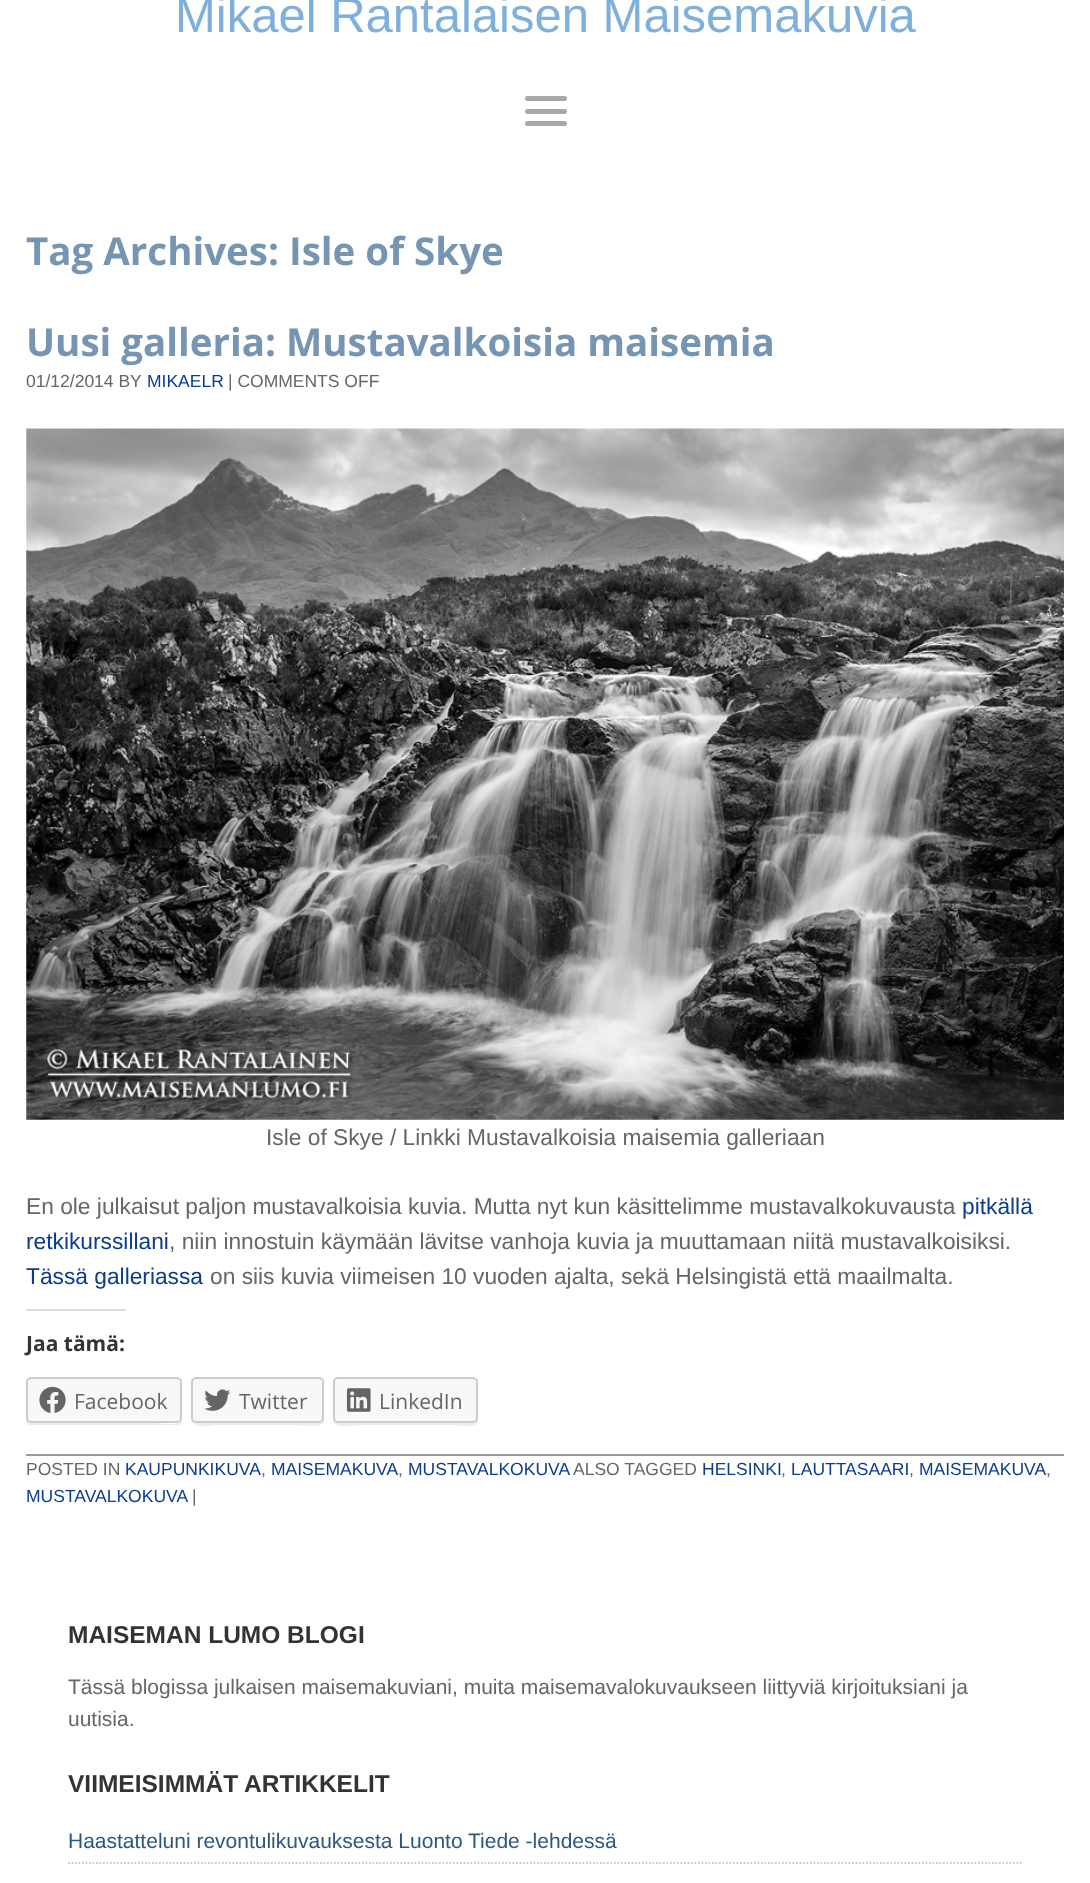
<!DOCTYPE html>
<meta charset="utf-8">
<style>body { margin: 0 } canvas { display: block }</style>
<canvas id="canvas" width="1090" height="1883"></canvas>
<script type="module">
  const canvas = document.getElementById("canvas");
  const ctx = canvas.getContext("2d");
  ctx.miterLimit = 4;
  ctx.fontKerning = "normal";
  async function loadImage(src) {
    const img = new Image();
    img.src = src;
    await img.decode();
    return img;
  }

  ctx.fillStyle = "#ffffff";
  ctx.fillRect(0, 0, 1090, 1883);
  ctx.font = "49px Liberation Sans";
  ctx.fillStyle = "#7fafdb";
  ctx.fillText("Mikael Rantalaisen Maisemakuvia", 175, 32);
  ctx.fillStyle = "#a8a8a8";
  ctx.beginPath();
  ctx.roundRect(525, 96, 42, 5, 2.5);
  ctx.fill();
  ctx.beginPath();
  ctx.roundRect(525, 109, 42, 5, 2.5);
  ctx.fill();
  ctx.beginPath();
  ctx.roundRect(525, 121, 42, 5, 2.5);
  ctx.fill();
  ctx.font = "bold 38.5px Open Sans";
  ctx.fillStyle = "#7695b2";
  ctx.fillText("Tag Archives: Isle of Skye", 26, 265);
  ctx.fillText("Uusi galleria: Mustavalkoisia maisemia", 26, 356);
  ctx.font = "17.5px Liberation Sans";
  ctx.fillStyle = "#666666";
  ctx.fillText("01/12/2014 BY", 26, 387);
  ctx.fillStyle = "#0b3c8f";
  ctx.fillText("MIKAELR", 147, 387);
  ctx.fillStyle = "#666666";
  ctx.fillText("| COMMENTS OFF", 228, 387);
  ctx.drawImage(await loadImage("img1.png"), 26, 428, 1038, 692);
  ctx.font = "22.75px Liberation Sans";
  ctx.fillText("Isle of Skye / Linkki Mustavalkoisia maisemia galleriaan", 266, 1145);
  ctx.fillText("En ole julkaisut paljon mustavalkoisia kuvia. Mutta nyt kun käsittelimme mustavalkokuvausta", 26, 1214);
  ctx.fillStyle = "#0b3c8f";
  ctx.fillText("pitkällä", 962, 1214);
  ctx.fillText("retkikurssillani", 26, 1249);
  ctx.fillStyle = "#666666";
  ctx.fillText(", niin innostuin käymään lävitse vanhoja kuvia ja muuttamaan niitä mustavalkoisiksi.", 169, 1249);
  ctx.fillStyle = "#0b3c8f";
  ctx.fillText("Tässä galleriassa", 26, 1284);
  ctx.fillStyle = "#666666";
  ctx.fillText("on siis kuvia viimeisen 10 vuoden ajalta, sekä Helsingistä että maailmalta.", 210, 1284);
  ctx.fillStyle = "#dcdcde";
  ctx.fillRect(26, 1309, 100, 2);
  ctx.font = "bold 21px Open Sans";
  ctx.fillStyle = "#333333";
  ctx.fillText("Jaa tämä:", 26, 1351);
  ctx.fillStyle = "#ebebeb";
  ctx.beginPath();
  ctx.moveTo(26, 1382);
  ctx.lineTo(26, 1420);
  ctx.bezierCurveTo(26, 1423, 28, 1425, 31, 1425);
  ctx.lineTo(177, 1425);
  ctx.bezierCurveTo(180, 1425, 182, 1423, 182, 1420);
  ctx.lineTo(182, 1418);
  ctx.bezierCurveTo(182, 1427, 163, 1423, 153, 1423);
  ctx.lineTo(32, 1423);
  ctx.bezierCurveTo(25, 1423, 26, 1416, 26, 1412);
  ctx.closePath();
  ctx.fill();
  ctx.fillStyle = "#f8f8f8";
  ctx.beginPath();
  ctx.roundRect(27, 1378, 154, 44, 4);
  ctx.fill();
  ctx.strokeStyle = "#cccccc";
  ctx.lineWidth = 2;
  ctx.stroke();
  ctx.drawImage(await loadImage("img2.png"), 39, 1386, 27, 27);
  ctx.font = "21px Open Sans";
  ctx.fillStyle = "#666666";
  ctx.fillText("Facebook", 74, 1409);
  ctx.fillStyle = "#ebebeb";
  ctx.beginPath();
  ctx.moveTo(191, 1419);
  ctx.bezierCurveTo(191, 1430, 213, 1425, 216, 1425);
  ctx.lineTo(298, 1425);
  ctx.bezierCurveTo(305, 1425, 322, 1429, 324, 1421);
  ctx.lineTo(324, 1382);
  ctx.lineTo(324, 1419);
  ctx.lineTo(322, 1421);
  ctx.bezierCurveTo(321, 1422, 320, 1423, 318, 1423);
  ctx.lineTo(195, 1423);
  ctx.bezierCurveTo(193, 1422, 192, 1421, 191, 1419);
  ctx.closePath();
  ctx.fill();
  ctx.fillStyle = "#f8f8f8";
  ctx.beginPath();
  ctx.roundRect(192, 1378, 131, 44, 4);
  ctx.fill();
  ctx.stroke();
  ctx.drawImage(await loadImage("img3.png"), 204, 1389, 27, 22);
  ctx.fillStyle = "#666666";
  ctx.fillText("Twitter", 239, 1409);
  ctx.fillStyle = "#ebebeb";
  ctx.beginPath();
  ctx.moveTo(333, 1420);
  ctx.bezierCurveTo(333, 1429, 350, 1425, 360, 1425);
  ctx.lineTo(450, 1425);
  ctx.bezierCurveTo(457, 1425, 476, 1429, 478, 1421);
  ctx.lineTo(478, 1382);
  ctx.lineTo(478, 1418);
  ctx.bezierCurveTo(478, 1420, 475, 1423, 472, 1423);
  ctx.lineTo(338, 1423);
  ctx.bezierCurveTo(336, 1423, 334, 1422, 333, 1420);
  ctx.closePath();
  ctx.fill();
  ctx.fillStyle = "#f8f8f8";
  ctx.beginPath();
  ctx.roundRect(334, 1378, 143, 44, 4);
  ctx.fill();
  ctx.stroke();
  ctx.drawImage(await loadImage("img4.png"), 346, 1388, 25, 24);
  ctx.fillStyle = "#666666";
  ctx.fillText("LinkedIn", 379, 1409);
  ctx.fillStyle = "#999999";
  ctx.fillRect(26, 1454, 1038, 2);
  ctx.font = "17.5px Liberation Sans";
  ctx.fillStyle = "#666666";
  ctx.fillText("POSTED IN", 26, 1475);
  ctx.fillStyle = "#0b3c8f";
  ctx.fillText("KAUPUNKIKUVA", 125, 1475);
  ctx.fillStyle = "#666666";
  ctx.fillText(",", 261, 1475);
  ctx.fillStyle = "#0b3c8f";
  ctx.fillText("MAISEMAKUVA", 271, 1475);
  ctx.fillStyle = "#666666";
  ctx.fillText(",", 398, 1475);
  ctx.fillStyle = "#0b3c8f";
  ctx.fillText("MUSTAVALKOKUVA", 408, 1475);
  ctx.fillStyle = "#666666";
  ctx.fillText("ALSO TAGGED", 573, 1475);
  ctx.fillStyle = "#0b3c8f";
  ctx.fillText("HELSINKI", 702, 1475);
  ctx.fillStyle = "#666666";
  ctx.fillText(",", 781, 1475);
  ctx.fillStyle = "#0b3c8f";
  ctx.fillText("LAUTTASAARI", 791, 1475);
  ctx.fillStyle = "#666666";
  ctx.fillText(",", 909, 1475);
  ctx.fillStyle = "#0b3c8f";
  ctx.fillText("MAISEMAKUVA", 919, 1475);
  ctx.fillStyle = "#666666";
  ctx.fillText(",", 1046, 1475);
  ctx.fillStyle = "#0b3c8f";
  ctx.fillText("MUSTAVALKOKUVA", 26, 1502);
  ctx.fillStyle = "#666666";
  ctx.fillText("|", 192, 1502);
  ctx.font = "bold 24.5px Liberation Sans";
  ctx.fillStyle = "#333333";
  ctx.fillText("MAISEMAN LUMO BLOGI", 68, 1643);
  ctx.font = "21px Liberation Sans";
  ctx.fillStyle = "#666666";
  ctx.fillText("Tässä blogissa julkaisen maisemakuviani, muita maisemavalokuvaukseen liittyviä kirjoituksiani ja", 68, 1694);
  ctx.fillText("uutisia.", 68, 1726);
  ctx.font = "bold 24.5px Liberation Sans";
  ctx.fillStyle = "#333333";
  ctx.fillText("VIIMEISIMMÄT ARTIKKELIT", 68, 1792);
  ctx.beginPath();
  ctx.moveTo(68, 1863);
  ctx.lineTo(1022, 1863);
  ctx.lineWidth = 1.8;
  ctx.setLineDash([1.75, 1.75]);
  ctx.stroke();
  ctx.font = "21px Liberation Sans";
  ctx.fillStyle = "#2b5780";
  ctx.fillText("Haastatteluni revontulikuvauksesta Luonto Tiede -lehdessä", 68, 1848);
</script>
